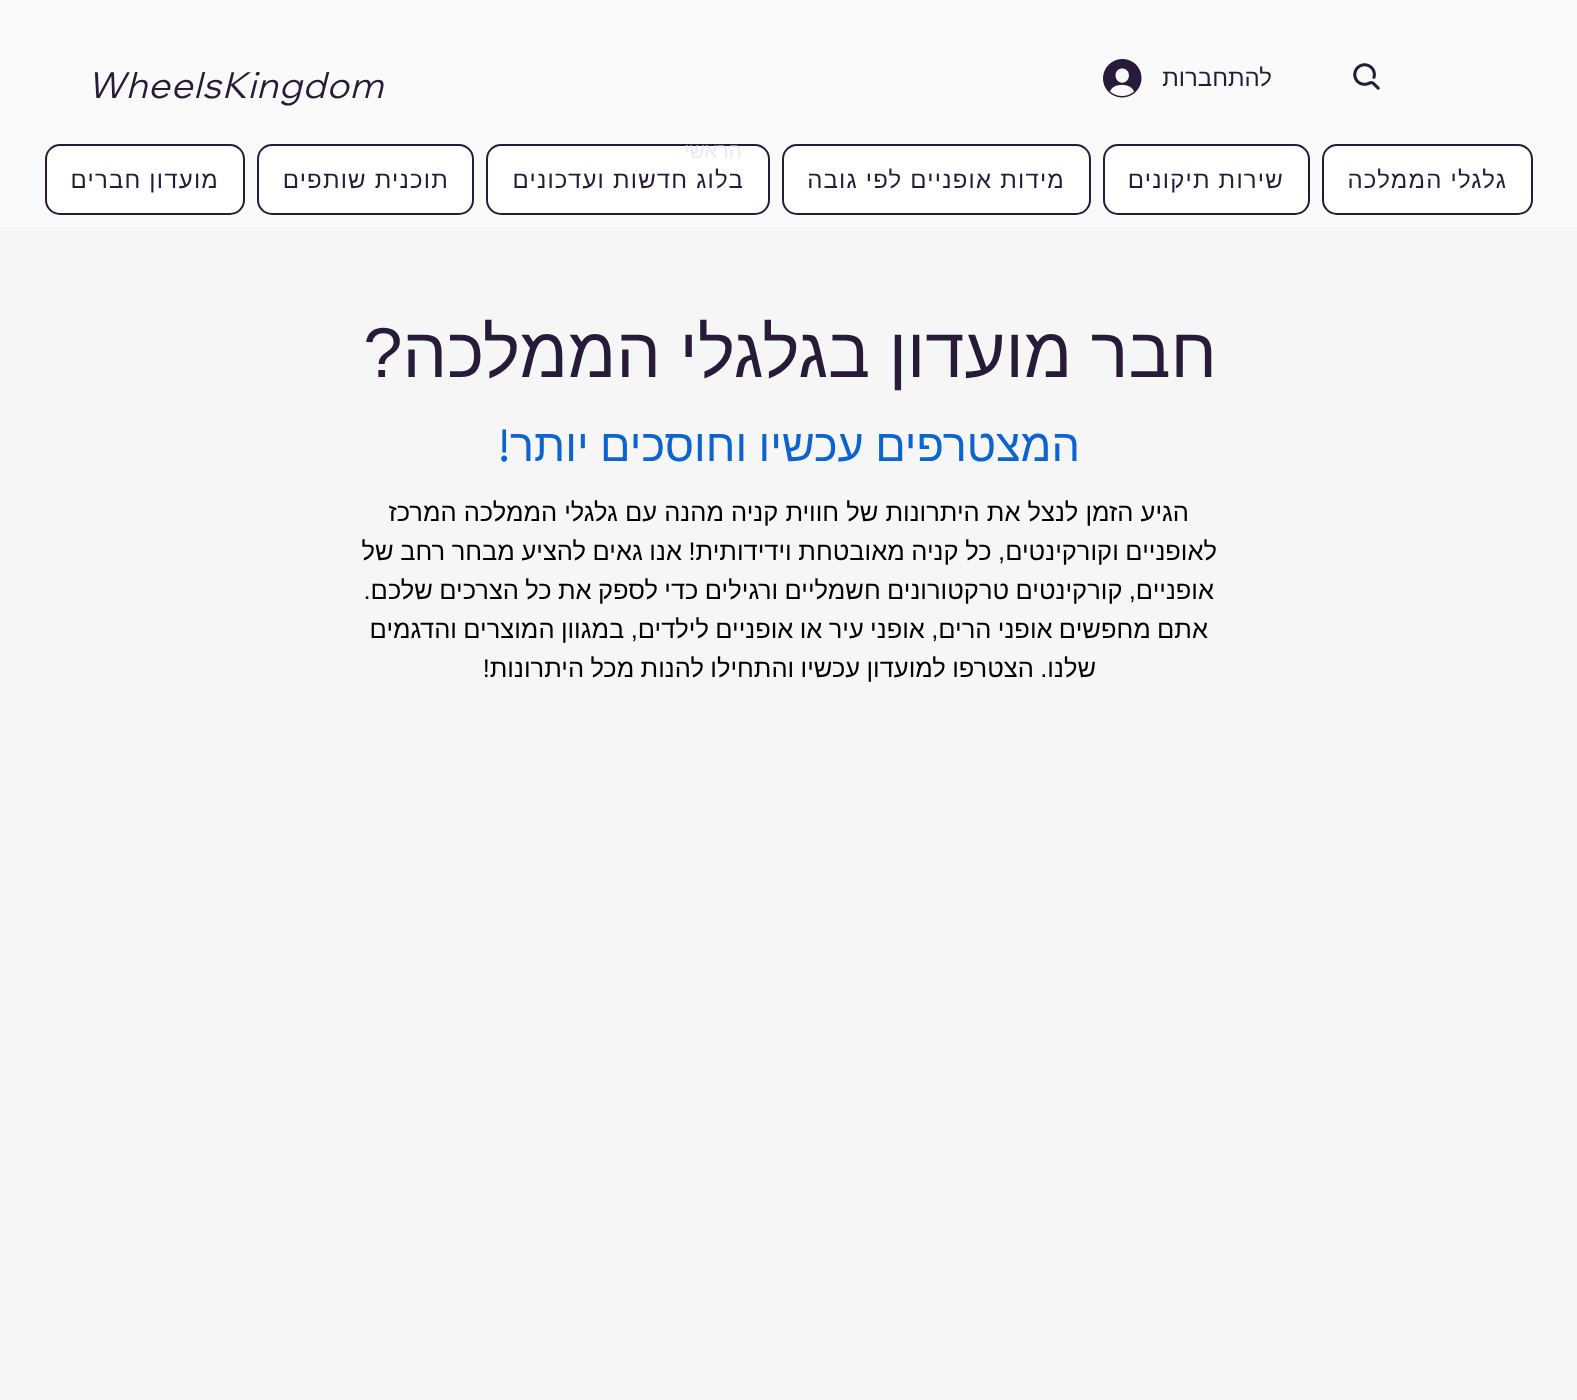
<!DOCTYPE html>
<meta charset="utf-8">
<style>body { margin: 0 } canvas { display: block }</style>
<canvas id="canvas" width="1577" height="1400"></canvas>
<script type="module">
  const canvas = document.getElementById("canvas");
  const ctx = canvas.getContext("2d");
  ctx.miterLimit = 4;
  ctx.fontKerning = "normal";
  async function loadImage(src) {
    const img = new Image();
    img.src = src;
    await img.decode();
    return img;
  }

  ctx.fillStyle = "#f6f6f6";
  ctx.fillRect(0, 0, 1577, 1400);
  ctx.fillStyle = "#fafafa";
  ctx.fillRect(0, 0, 1577, 227);
  ctx.drawImage(await loadImage("img1.png"), 1353, 63, 27, 27);
  ctx.direction = "rtl";
  ctx.font = "24px Liberation Sans";
  ctx.fillStyle = "#281a39";
  ctx.fillText("להתחברות", 1272, 86);
  ctx.drawImage(await loadImage("img2.png"), 1103, 59, 39, 39);
  ctx.letterSpacing = "1.1px";
  ctx.direction = "ltr";
  ctx.font = "italic 36px Wix Madefor Display";
  ctx.fillText("WheelsKingdom", 87, 98);
  ctx.fillStyle = "#ffffff";
  ctx.beginPath();
  ctx.roundRect(1323, 145, 209, 69, 14);
  ctx.fill();
  ctx.strokeStyle = "#281a39";
  ctx.lineWidth = 2;
  ctx.stroke();
  ctx.letterSpacing = "1.2px";
  ctx.direction = "rtl";
  ctx.font = "24px Liberation Sans";
  ctx.fillStyle = "#281a39";
  ctx.fillText("גלגלי הממלכה", 1507, 188);
  ctx.fillStyle = "#ffffff";
  ctx.beginPath();
  ctx.roundRect(1104, 145, 205, 69, 14);
  ctx.fill();
  ctx.stroke();
  ctx.fillStyle = "#281a39";
  ctx.fillText("שירות תיקונים", 1284, 188);
  ctx.fillStyle = "#ffffff";
  ctx.beginPath();
  ctx.roundRect(783, 145, 307, 69, 14);
  ctx.fill();
  ctx.stroke();
  ctx.fillStyle = "#281a39";
  ctx.fillText("מידות אופניים לפי גובה", 1065, 188);
  ctx.fillStyle = "#ffffff";
  ctx.beginPath();
  ctx.roundRect(487, 145, 282, 69, 14);
  ctx.fill();
  ctx.stroke();
  ctx.fillStyle = "#281a39";
  ctx.fillText("בלוג חדשות ועדכונים", 744, 188);
  ctx.fillStyle = "#ffffff";
  ctx.beginPath();
  ctx.roundRect(258, 145, 215, 69, 14);
  ctx.fill();
  ctx.stroke();
  ctx.fillStyle = "#281a39";
  ctx.fillText("תוכנית שותפים", 449, 188);
  ctx.fillStyle = "#ffffff";
  ctx.beginPath();
  ctx.roundRect(46, 145, 198, 69, 14);
  ctx.fill();
  ctx.stroke();
  ctx.fillStyle = "#281a39";
  ctx.fillText("מועדון חברים", 219, 188);
  ctx.letterSpacing = "0px";
  ctx.wordSpacing = "-1px";
  ctx.font = "70.5px Liberation Sans";
  ctx.fillText("חבר מועדון בגלגלי הממלכה?", 1217, 377);
  ctx.font = "45px Liberation Sans";
  ctx.fillStyle = "#0d63d1";
  ctx.fillText("המצטרפים עכשיו וחוסכים יותר", 1080, 461);
  ctx.wordSpacing = "0px";
  ctx.font = "45px Space Grotesk";
  ctx.fillText("!", 510, 461);
  ctx.font = "25.5px Liberation Sans";
  ctx.fillStyle = "#000000";
  ctx.fillText("הגיע הזמן לנצל את היתרונות של חווית קניה מהנה עם גלגלי הממלכה המרכז", 1189, 521);
  ctx.wordSpacing = "-0.5px";
  ctx.fillText("לאופניים וקורקינטים, כל קניה מאובטחת וידידותית! אנו גאים להציע מבחר רחב של", 1217, 560);
  ctx.wordSpacing = "-0.75px";
  ctx.fillText("אופניים, קורקינטים טרקטורונים חשמליים ורגילים כדי לספק את כל הצרכים שלכם.", 1214, 599);
  ctx.fillText("אתם מחפשים אופני הרים, אופני עיר או אופניים לילדים, במגוון המוצרים והדגמים", 1208, 638);
  ctx.fillText("שלנו. הצטרפו למועדון עכשיו והתחילו להנות מכל היתרונות!", 1096, 677);
  ctx.wordSpacing = "0px";
  ctx.font = "21px Liberation Sans";
  ctx.fillStyle = "#ebeaed";
  ctx.fillText("הראשי", 742, 158);
</script>
